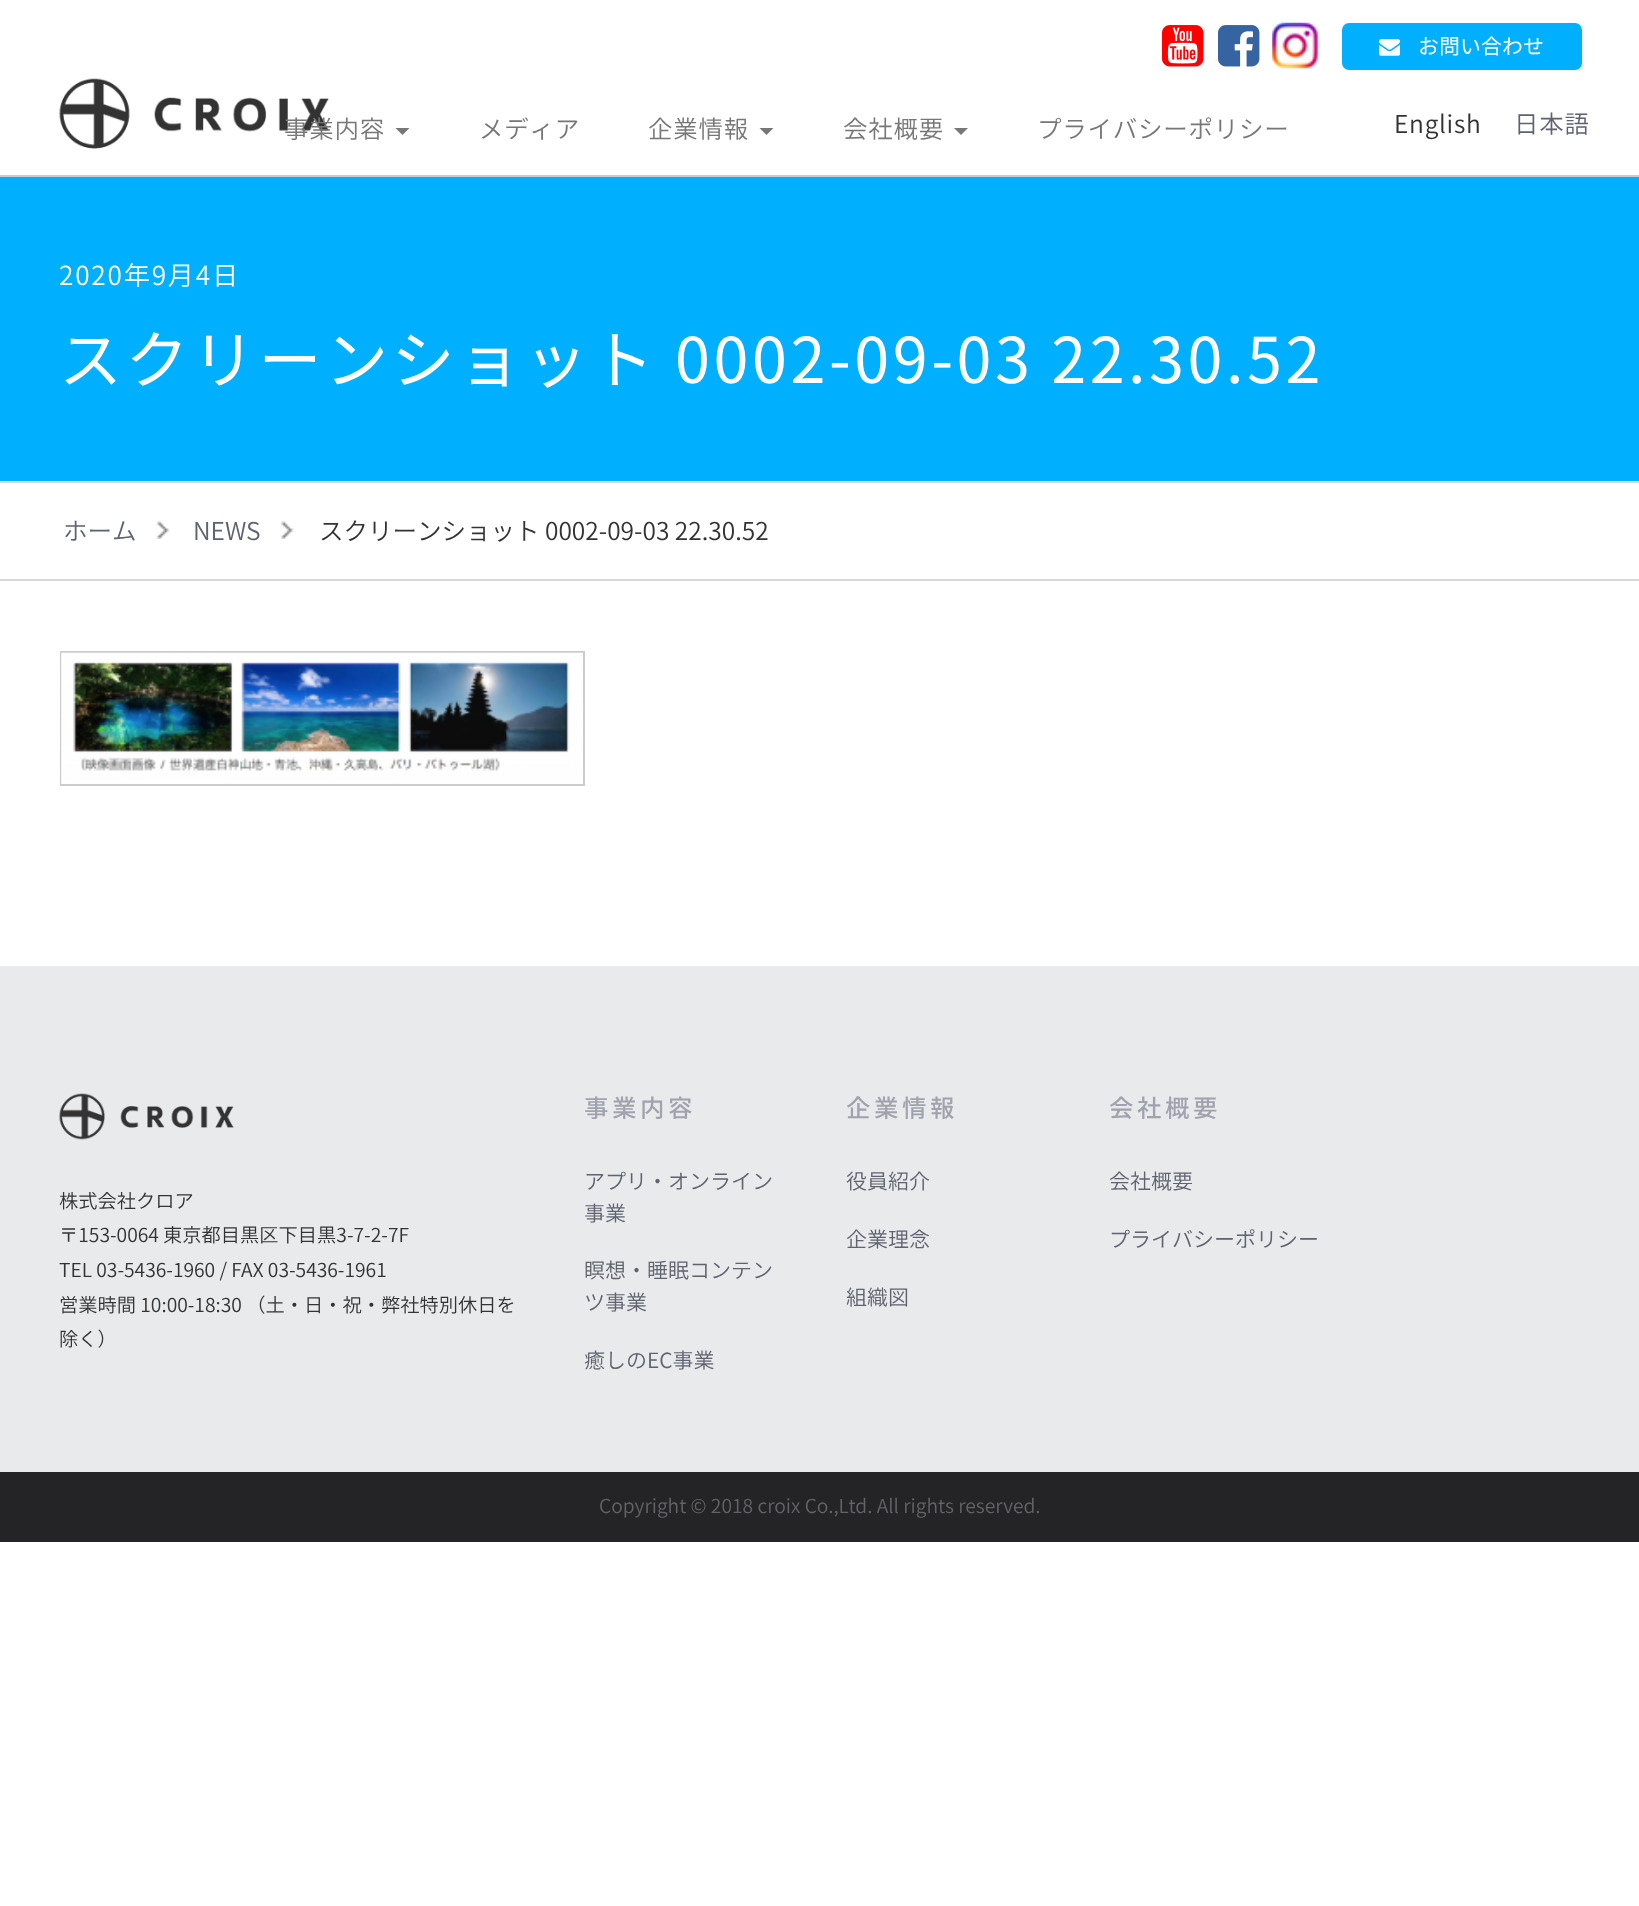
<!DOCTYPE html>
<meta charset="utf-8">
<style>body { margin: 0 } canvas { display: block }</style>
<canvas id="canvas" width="1639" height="1906"></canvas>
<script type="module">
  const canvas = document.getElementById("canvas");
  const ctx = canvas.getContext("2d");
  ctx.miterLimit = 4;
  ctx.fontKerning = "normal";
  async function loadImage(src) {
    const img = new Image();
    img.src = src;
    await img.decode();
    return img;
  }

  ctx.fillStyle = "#ffffff";
  ctx.fillRect(0, 0, 1639, 1906);
  ctx.fillStyle = "#c9cbd1";
  ctx.fillRect(0, 175, 1639, 2);
  ctx.drawImage(await loadImage("img1.png"), 59, 78, 270, 71);
  ctx.drawImage(await loadImage("img2.png"), 1162, 25, 42, 42);
  ctx.drawImage(await loadImage("img3.png"), 1218, 25, 42, 42);
  ctx.drawImage(await loadImage("img4.png"), 1272, 22, 47, 47);
  ctx.fillStyle = "#00b0ff";
  ctx.beginPath();
  ctx.roundRect(1343, 24, 238, 45, 6);
  ctx.fill();
  ctx.strokeStyle = "#00b0ff";
  ctx.lineWidth = 2;
  ctx.stroke();
  ctx.drawImage(await loadImage("img5.png"), 1379, 39, 21, 17);
  ctx.font = "21px Noto Sans JP";
  ctx.fillStyle = "#ffffff";
  ctx.fillText("お問い合わせ", 1418, 54);
  ctx.letterSpacing = "0.75px";
  ctx.font = "300 24.5px Noto Sans JP";
  ctx.fillStyle = "#777777";
  ctx.fillText("事業内容", 284, 138);
  ctx.beginPath();
  ctx.moveTo(395.5, 128);
  ctx.lineTo(409.5, 128);
  ctx.lineTo(402.5, 135);
  ctx.closePath();
  ctx.fill();
  ctx.fillText("メディア", 479, 138);
  ctx.fillText("企業情報", 648, 138);
  ctx.beginPath();
  ctx.moveTo(759.5, 128);
  ctx.lineTo(773.5, 128);
  ctx.lineTo(766.5, 135);
  ctx.closePath();
  ctx.fill();
  ctx.fillText("会社概要", 843, 138);
  ctx.beginPath();
  ctx.moveTo(954, 128);
  ctx.lineTo(968, 128);
  ctx.lineTo(961, 135);
  ctx.closePath();
  ctx.fill();
  ctx.fillText("プライバシーポリシー", 1037, 138);
  ctx.fillStyle = "#333333";
  ctx.fillText("English", 1394, 133);
  ctx.fillStyle = "#5f636f";
  ctx.fillText("日本語", 1514, 133);
  ctx.fillStyle = "#00b0ff";
  ctx.fillRect(0, 177, 1639, 304);
  ctx.letterSpacing = "1.75px";
  ctx.font = "300 26.25px Noto Sans JP";
  ctx.fillStyle = "#ffffff";
  ctx.fillText("2020年9月4日", 59, 285);
  ctx.letterSpacing = "3.5px";
  ctx.font = "63px Noto Sans JP";
  ctx.fillText("スクリーンショット 0002-09-03 22.30.52", 59, 383);
  ctx.fillStyle = "#d7d9dd";
  ctx.fillRect(0, 481, 1639, 2);
  ctx.fillRect(0, 579, 1639, 2);
  ctx.drawImage(await loadImage("img6.png"), 156, 521, 14, 18);
  ctx.letterSpacing = "0px";
  ctx.font = "300 24.5px Noto Sans JP";
  ctx.fillStyle = "#5f636f";
  ctx.fillText("ホーム", 63, 540);
  ctx.drawImage(await loadImage("img7.png"), 280, 521, 14, 18);
  ctx.fillText("NEWS", 193, 540);
  ctx.fillStyle = "#333333";
  ctx.fillText("スクリーンショット 0002-09-03 22.30.52", 319, 540);
  ctx.strokeStyle = "#cccccc";
  ctx.strokeRect(61, 652, 523, 133);
  ctx.drawImage(await loadImage("img8.png"), 61, 652, 522, 132);
  ctx.fillStyle = "#e9eaec";
  ctx.fillRect(0, 966, 1639, 506);
  ctx.letterSpacing = "3.5px";
  ctx.font = "500 24.5px Noto Sans JP";
  ctx.fillStyle = "#a0a3ae";
  ctx.fillText("事業内容", 584, 1117);
  ctx.letterSpacing = "0px";
  ctx.font = "300 21px Noto Sans JP";
  ctx.fillStyle = "#5f636f";
  ctx.fillText("アプリ・オンライン", 584, 1189);
  ctx.fillText("事業", 584, 1221);
  ctx.fillText("瞑想・睡眠コンテン", 584, 1278);
  ctx.fillText("ツ事業", 584, 1310);
  ctx.fillText("癒しのEC事業", 584, 1368);
  ctx.letterSpacing = "3.5px";
  ctx.font = "500 24.5px Noto Sans JP";
  ctx.fillStyle = "#a0a3ae";
  ctx.fillText("企業情報", 846, 1117);
  ctx.letterSpacing = "0px";
  ctx.font = "300 21px Noto Sans JP";
  ctx.fillStyle = "#5f636f";
  ctx.fillText("役員紹介", 846, 1189);
  ctx.fillText("企業理念", 846, 1247);
  ctx.fillText("組織図", 846, 1305);
  ctx.letterSpacing = "3.5px";
  ctx.font = "500 24.5px Noto Sans JP";
  ctx.fillStyle = "#a0a3ae";
  ctx.fillText("会社概要", 1109, 1117);
  ctx.letterSpacing = "0px";
  ctx.font = "300 21px Noto Sans JP";
  ctx.fillStyle = "#5f636f";
  ctx.fillText("会社概要", 1109, 1189);
  ctx.fillText("プライバシーポリシー", 1109, 1247);
  ctx.drawImage(await loadImage("img9.png"), 59, 1093, 175, 47);
  ctx.font = "300 19.25px Noto Sans JP";
  ctx.fillStyle = "#333333";
  ctx.fillText("株式会社クロア", 59, 1208);
  ctx.fillText("〒153-0064 東京都目黒区下目黒3-7-2-7F", 59, 1242);
  ctx.fillText("TEL 03-5436-1960 / FAX 03-5436-1961", 59, 1277);
  ctx.fillText("営業時間 10:00-18:30 （土・日・祝・弊社特別休日を", 59, 1312);
  ctx.fillText("除く）", 59, 1346);
  ctx.fillStyle = "#242426";
  ctx.fillRect(0, 1472, 1639, 70);
  ctx.fillStyle = "#626267";
  ctx.fillText("Copyright © 2018 croix Co.,Ltd. All rights reserved.", 599, 1513);
</script>
